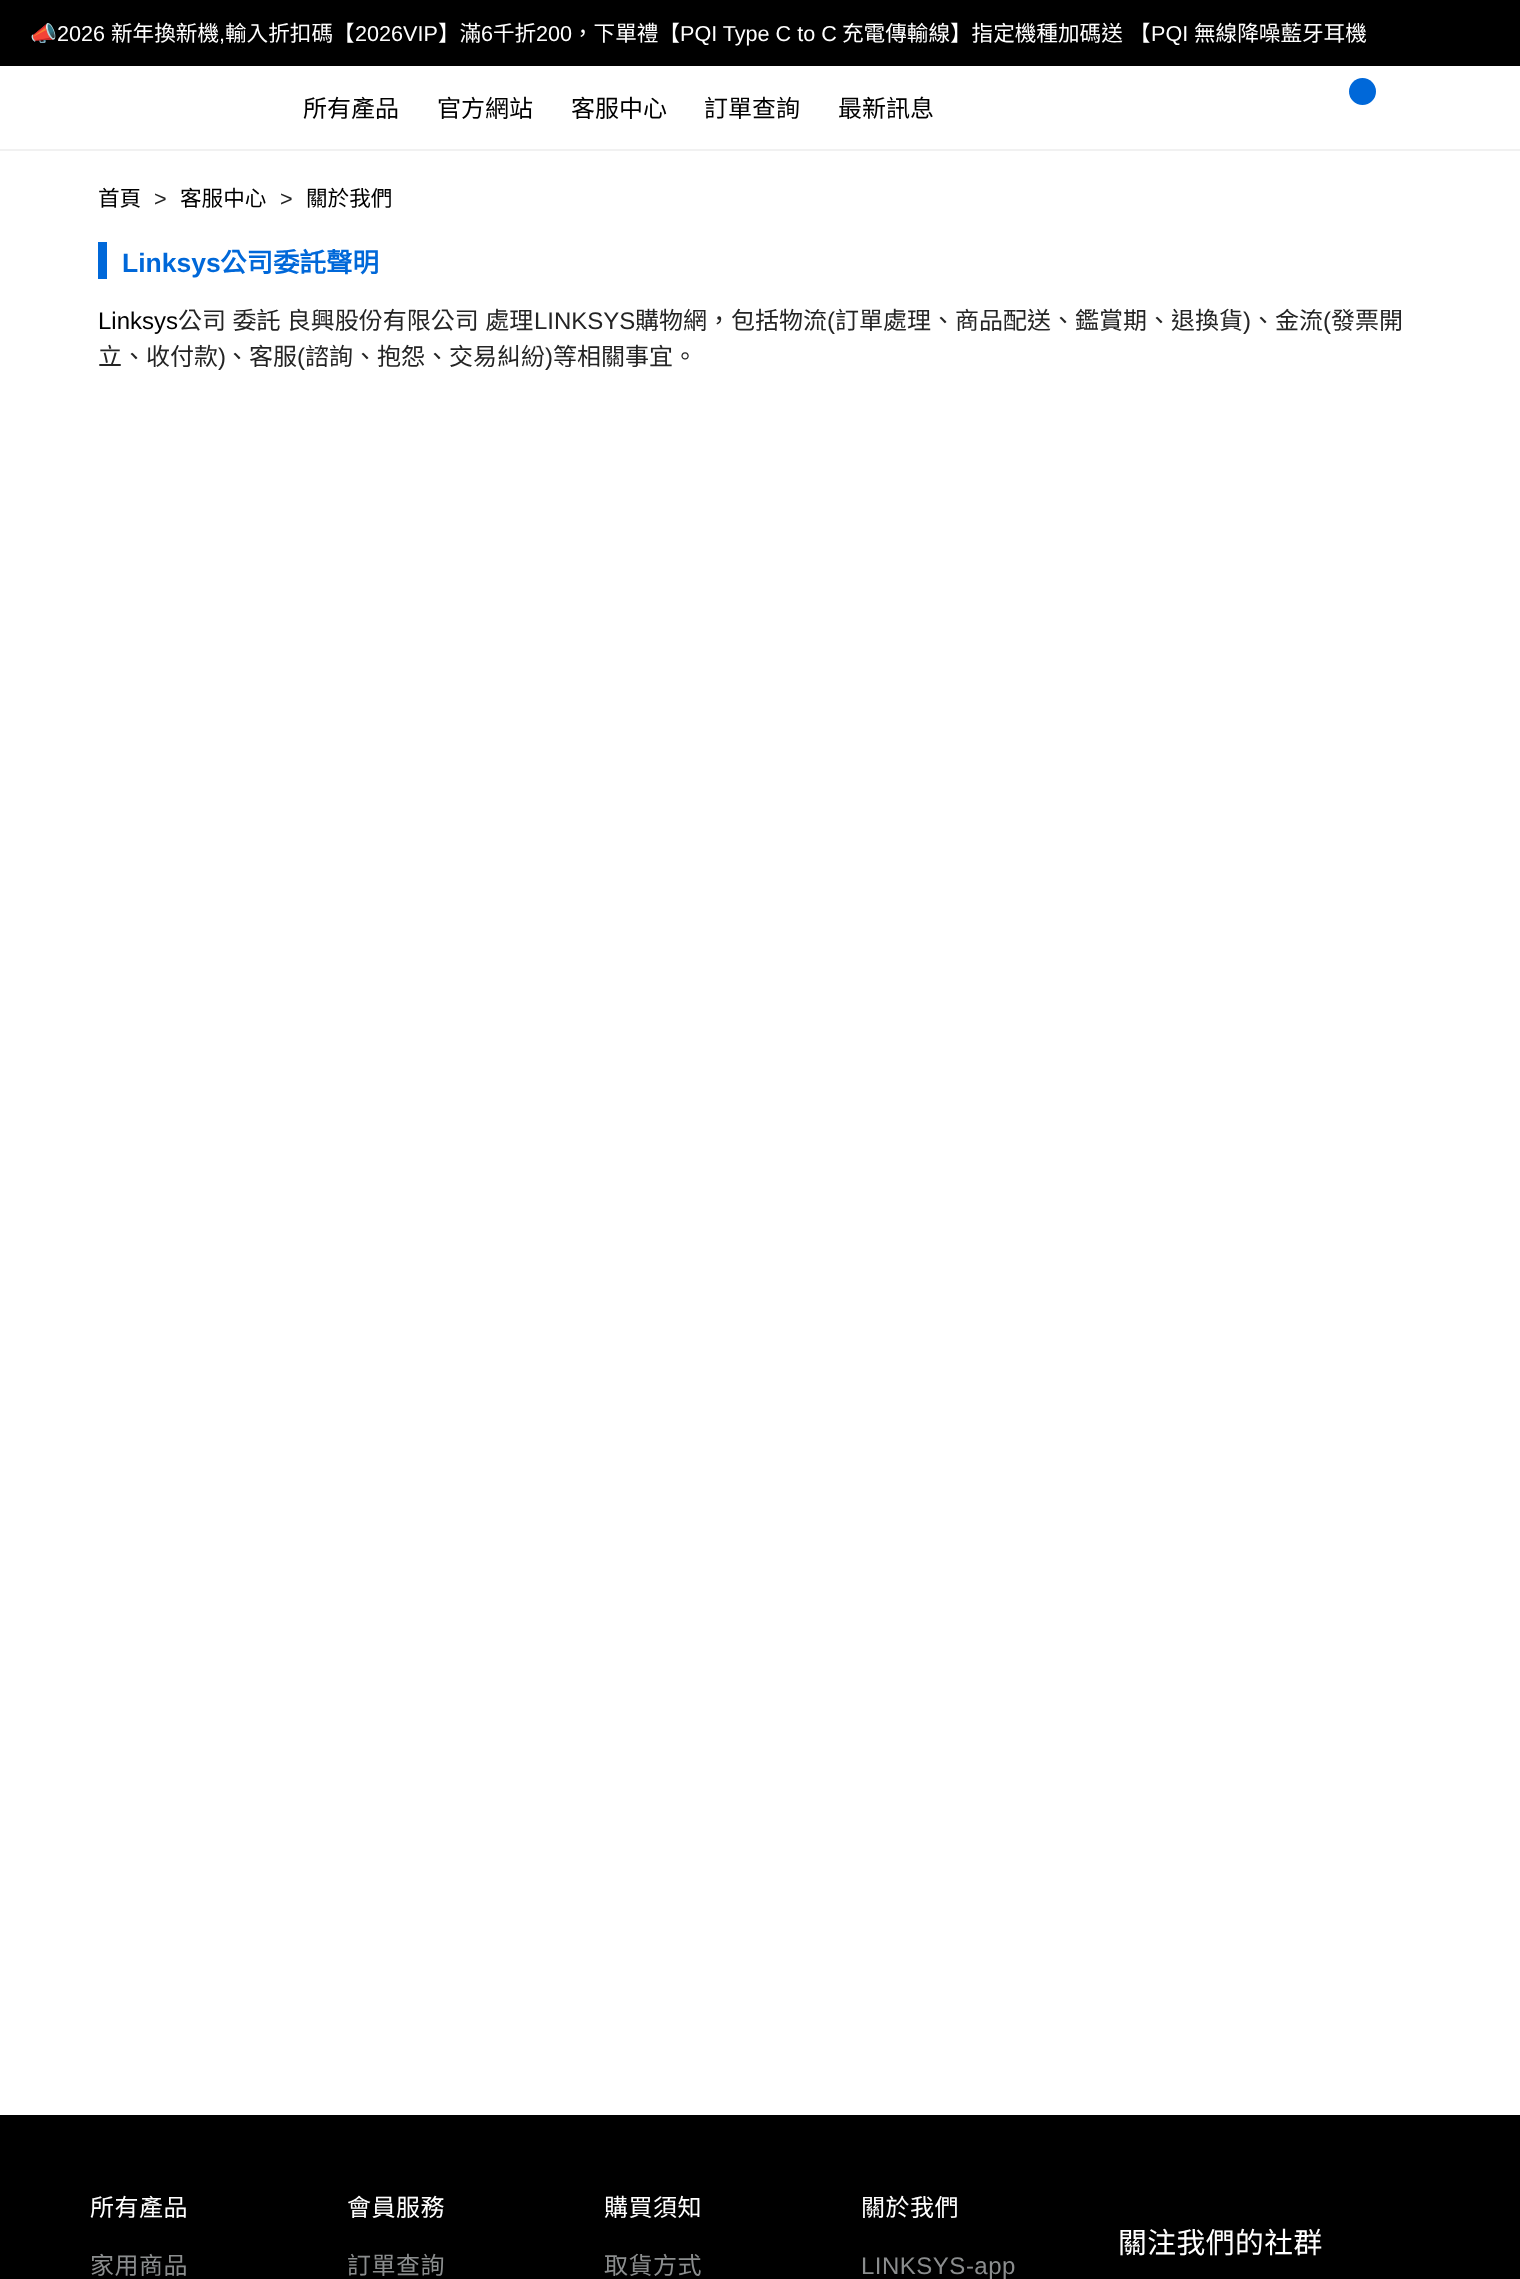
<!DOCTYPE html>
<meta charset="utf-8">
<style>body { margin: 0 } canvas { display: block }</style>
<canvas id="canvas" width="1520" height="2279"></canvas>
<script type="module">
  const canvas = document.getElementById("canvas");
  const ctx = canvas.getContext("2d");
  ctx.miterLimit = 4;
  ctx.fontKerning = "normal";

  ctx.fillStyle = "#ffffff";
  ctx.fillRect(0, 0, 1520, 2279);
  ctx.fillStyle = "#f1f1f1";
  ctx.fillRect(0, 149, 1520, 2);
  ctx.fillStyle = "#000000";
  ctx.fillRect(0, 0, 1520, 66);
  ctx.font = "21.6px Noto Color Emoji";
  ctx.fillStyle = "#ffffff";
  ctx.fillText("📣", 30, 41);
  ctx.font = "21.6px Liberation Sans";
  ctx.fillText("2026", 57, 41);
  ctx.font = "21.6px Noto Sans CJK TC";
  ctx.fillText("新年換新機", 111, 41);
  ctx.font = "21.6px Liberation Sans";
  ctx.fillText(",", 219, 41);
  ctx.font = "21.6px Noto Sans CJK TC";
  ctx.fillText("輸入折扣碼【", 225, 41);
  ctx.font = "21.6px Liberation Sans";
  ctx.fillText("2026VIP", 355, 41);
  ctx.font = "21.6px Noto Sans CJK TC";
  ctx.fillText("】滿", 438, 41);
  ctx.font = "21.6px Liberation Sans";
  ctx.fillText("6", 481, 41);
  ctx.font = "21.6px Noto Sans CJK TC";
  ctx.fillText("千折", 493, 41);
  ctx.font = "21.6px Liberation Sans";
  ctx.fillText("200", 536, 41);
  ctx.font = "21.6px Noto Sans CJK TC";
  ctx.fillText("，下單禮【", 572, 41);
  ctx.font = "21.6px Liberation Sans";
  ctx.fillText("PQI Type C to C", 680, 41);
  ctx.font = "21.6px Noto Sans CJK TC";
  ctx.fillText("充電傳輸線】指定機種加碼送", 842, 41);
  ctx.fillText("【", 1129, 41);
  ctx.font = "21.6px Liberation Sans";
  ctx.fillText("PQI", 1151, 41);
  ctx.font = "21.6px Noto Sans CJK TC";
  ctx.fillText("無線降噪藍牙耳機", 1194, 41);
  ctx.fillStyle = "#0068d9";
  ctx.beginPath();
  ctx.arc(1362.5, 91.5, 13.5, 0, Math.PI * 2);
  ctx.fill();
  ctx.font = "24px Noto Sans CJK TC";
  ctx.fillStyle = "#000000";
  ctx.fillText("所有產品", 303, 117);
  ctx.fillText("官方網站", 437, 117);
  ctx.fillText("客服中心", 571, 117);
  ctx.fillText("訂單查詢", 704, 117);
  ctx.fillText("最新訊息", 838, 117);
  ctx.font = "21.6px Noto Sans CJK TC";
  ctx.fillText("首頁", 98, 206);
  ctx.font = "21.6px Liberation Sans";
  ctx.fillStyle = "#242424";
  ctx.fillText(">", 154, 206);
  ctx.font = "21.6px Noto Sans CJK TC";
  ctx.fillStyle = "#000000";
  ctx.fillText("客服中心", 180, 206);
  ctx.font = "21.6px Liberation Sans";
  ctx.fillStyle = "#242424";
  ctx.fillText(">", 280, 206);
  ctx.font = "21.6px Noto Sans CJK TC";
  ctx.fillStyle = "#000000";
  ctx.fillText("關於我們", 306, 206);
  ctx.fillStyle = "#0068d9";
  ctx.fillRect(98, 242, 9, 37);
  ctx.font = "bold 26.5px Liberation Sans";
  ctx.fillText("Linksys", 122, 272);
  ctx.font = "bold 26.5px Noto Sans CJK TC";
  ctx.fillText("公司委託聲明", 220, 272);
  ctx.font = "24px Liberation Sans";
  ctx.fillStyle = "#000000";
  ctx.fillText("Linksys", 98, 329);
  ctx.wordSpacing = "1px";
  ctx.font = "24px Noto Sans CJK TC";
  ctx.fillStyle = "#242424";
  ctx.fillText("公司 委託 良興股份有限公司 處理", 178, 329);
  ctx.wordSpacing = "0px";
  ctx.font = "24px Liberation Sans";
  ctx.fillText("LINKSYS", 534, 329);
  ctx.font = "24px Noto Sans CJK TC";
  ctx.fillText("購物網，包括物流", 635, 329);
  ctx.font = "24px Liberation Sans";
  ctx.fillText("(", 827, 329);
  ctx.font = "24px Noto Sans CJK TC";
  ctx.fillText("訂單處理、商品配送、鑑賞期、退換貨", 835, 329);
  ctx.font = "24px Liberation Sans";
  ctx.fillText(")", 1243, 329);
  ctx.font = "24px Noto Sans CJK TC";
  ctx.fillText("、金流", 1251, 329);
  ctx.font = "24px Liberation Sans";
  ctx.fillText("(", 1323, 329);
  ctx.font = "24px Noto Sans CJK TC";
  ctx.fillText("發票開", 1331, 329);
  ctx.fillText("立、收付款", 98, 365);
  ctx.font = "24px Liberation Sans";
  ctx.fillText(")", 218, 365);
  ctx.font = "24px Noto Sans CJK TC";
  ctx.fillText("、客服", 225, 365);
  ctx.font = "24px Liberation Sans";
  ctx.fillText("(", 297, 365);
  ctx.font = "24px Noto Sans CJK TC";
  ctx.fillText("諮詢、抱怨、交易糾紛", 305, 365);
  ctx.font = "24px Liberation Sans";
  ctx.fillText(")", 545, 365);
  ctx.font = "24px Noto Sans CJK TC";
  ctx.fillText("等相關事宜。", 553, 365);
  ctx.fillStyle = "#000000";
  ctx.fillRect(0, 2115, 1520, 164);
  ctx.letterSpacing = "0.5px";
  ctx.fillStyle = "#ffffff";
  ctx.fillText("所有產品", 90, 2216);
  ctx.fillStyle = "#8b8d8e";
  ctx.fillText("家用商品", 90, 2274);
  ctx.fillStyle = "#ffffff";
  ctx.fillText("會員服務", 347, 2216);
  ctx.fillStyle = "#8b8d8e";
  ctx.fillText("訂單查詢", 347, 2274);
  ctx.fillStyle = "#ffffff";
  ctx.fillText("購買須知", 604, 2216);
  ctx.fillStyle = "#8b8d8e";
  ctx.fillText("取貨方式", 604, 2274);
  ctx.fillStyle = "#ffffff";
  ctx.fillText("關於我們", 861, 2216);
  ctx.font = "24px Liberation Sans";
  ctx.fillStyle = "#8b8d8e";
  ctx.fillText("LINKSYS-app", 861, 2274);
  ctx.font = "28.75px Noto Sans CJK TC";
  ctx.fillStyle = "#ffffff";
  ctx.fillText("關注我們的社群", 1118, 2253);
</script>
